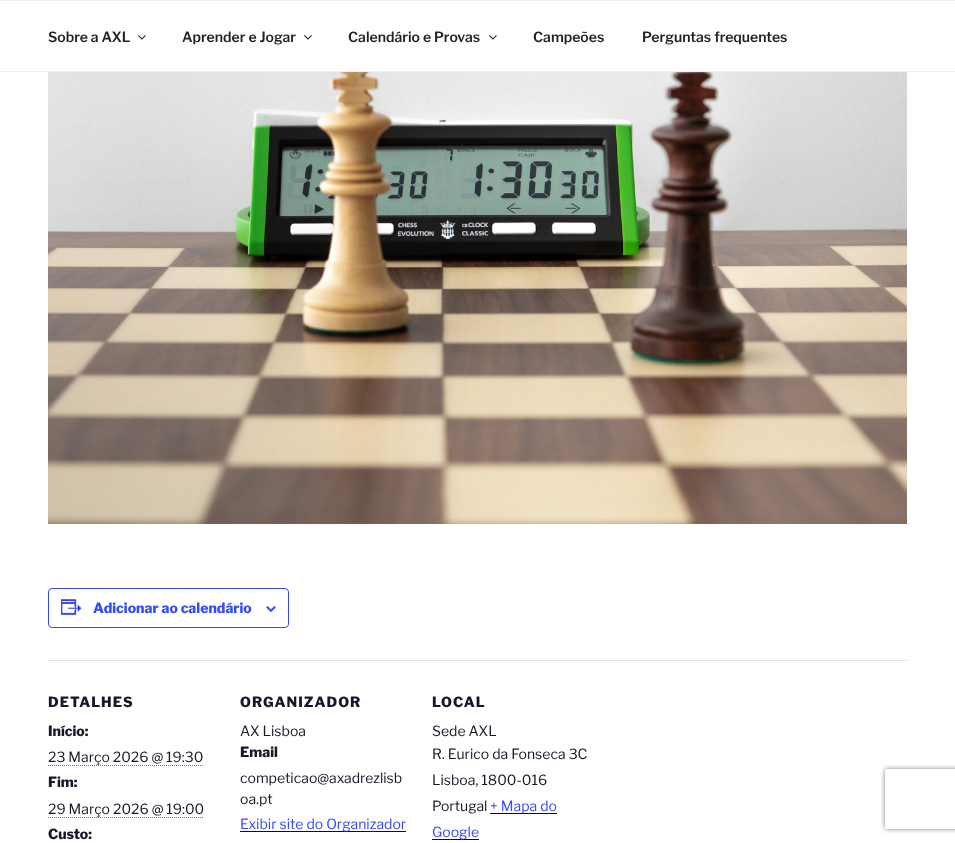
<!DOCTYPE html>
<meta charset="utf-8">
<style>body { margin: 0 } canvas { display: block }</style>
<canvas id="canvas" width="955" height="843"></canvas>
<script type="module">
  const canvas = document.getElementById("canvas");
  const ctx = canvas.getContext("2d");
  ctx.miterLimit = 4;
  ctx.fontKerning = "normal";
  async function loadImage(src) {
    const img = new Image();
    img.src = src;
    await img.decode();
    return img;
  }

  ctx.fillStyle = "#ffffff";
  ctx.fillRect(0, 0, 955, 843);
  ctx.fillStyle = "#eeeeee";
  ctx.fillRect(0, 0, 955, 1);
  ctx.fillRect(0, 71, 955, 1);
  ctx.font = "100 14px 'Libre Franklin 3'";
  ctx.fillStyle = "#222222";
  ctx.fillText("Sobre a AXL", 48, 42);
  ctx.drawImage(await loadImage("img1.png"), 138, 35, 8, 5);
  ctx.fillText("Aprender e Jogar", 182, 42);
  ctx.drawImage(await loadImage("img1.png"), 304, 35, 8, 5);
  ctx.fillText("Calendário e Provas", 348, 42);
  ctx.drawImage(await loadImage("img1.png"), 489, 35, 8, 5);
  ctx.fillText("Campeões", 533, 42);
  ctx.fillText("Perguntas frequentes", 642, 42);
  ctx.drawImage(await loadImage("img2.png"), 48, 72, 859, 452);
  ctx.beginPath();
  ctx.roundRect(48.5, 588.5, 240, 39, 3.5);
  ctx.strokeStyle = "#334aff";
  ctx.stroke();
  ctx.drawImage(await loadImage("img3.png"), 61, 599, 21, 16);
  ctx.font = "100 14px Libre Franklin";
  ctx.fillStyle = "#334aff";
  ctx.fillText("Adicionar ao calendário", 93, 613);
  ctx.drawImage(await loadImage("img4.png"), 266, 606, 10, 6);
  ctx.fillStyle = "#e4e4e4";
  ctx.fillRect(48, 660, 859, 1);
  ctx.letterSpacing = "1px";
  ctx.fillStyle = "#141827";
  ctx.fillText("DETALHES", 48, 707);
  ctx.letterSpacing = "0px";
  ctx.fillText("Início:", 48, 736);
  ctx.font = "100 14px 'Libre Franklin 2'";
  ctx.fillText("23 Março 2026 @ 19:30", 48, 762);
  ctx.beginPath();
  ctx.moveTo(48, 765.5);
  ctx.lineTo(203, 765.5);
  ctx.strokeStyle = "#767676";
  ctx.setLineDash([1, 1]);
  ctx.stroke();
  ctx.font = "100 14px Libre Franklin";
  ctx.fillText("Fim:", 48, 787);
  ctx.font = "100 14px 'Libre Franklin 2'";
  ctx.fillText("29 Março 2026 @ 19:00", 48, 814);
  ctx.beginPath();
  ctx.moveTo(48, 817.5);
  ctx.lineTo(204, 817.5);
  ctx.stroke();
  ctx.font = "100 14px Libre Franklin";
  ctx.fillText("Custo:", 48, 839);
  ctx.letterSpacing = "1px";
  ctx.fillText("ORGANIZADOR", 240, 707);
  ctx.letterSpacing = "0px";
  ctx.font = "100 14px 'Libre Franklin 2'";
  ctx.fillText("AX Lisboa", 240, 736);
  ctx.font = "100 14px Libre Franklin";
  ctx.fillText("Email", 240, 757);
  ctx.font = "100 14px 'Libre Franklin 2'";
  ctx.fillText("competicao@axadrezlisb", 240, 783);
  ctx.fillText("oa.pt", 240, 804);
  ctx.fillStyle = "#0f0f0f";
  ctx.fillRect(240, 831, 166, 1);
  ctx.fillStyle = "#334aff";
  ctx.fillText("Exibir site do Organizador", 240, 829);
  ctx.letterSpacing = "1px";
  ctx.font = "100 14px Libre Franklin";
  ctx.fillStyle = "#141827";
  ctx.fillText("LOCAL", 432, 707);
  ctx.letterSpacing = "0px";
  ctx.font = "100 14px 'Libre Franklin 2'";
  ctx.fillText("Sede AXL", 432, 736);
  ctx.fillText("R. Eurico da Fonseca 3C", 432, 759);
  ctx.fillText("Lisboa, 1800-016", 432, 785);
  ctx.fillText("Portugal", 432, 811);
  ctx.fillStyle = "#0f0f0f";
  ctx.fillRect(490, 813, 67, 1);
  ctx.fillStyle = "#334aff";
  ctx.fillText("+ Mapa do", 490, 811);
  ctx.fillStyle = "#0f0f0f";
  ctx.fillRect(432, 839, 47, 1);
  ctx.fillStyle = "#334aff";
  ctx.fillText("Google", 432, 837);
  ctx.save();
  ctx.beginPath();
  ctx.moveTo(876, 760);
  ctx.lineTo(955, 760);
  ctx.lineTo(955, 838);
  ctx.lineTo(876, 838);
  ctx.closePath();
  ctx.moveTo(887, 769);
  ctx.lineTo(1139, 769);
  ctx.bezierCurveTo(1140, 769, 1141, 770, 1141, 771);
  ctx.lineTo(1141, 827);
  ctx.bezierCurveTo(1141, 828, 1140, 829, 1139, 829);
  ctx.lineTo(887, 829);
  ctx.bezierCurveTo(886, 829, 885, 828, 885, 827);
  ctx.lineTo(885, 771);
  ctx.bezierCurveTo(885, 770, 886, 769, 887, 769);
  ctx.closePath();
  ctx.clip("evenodd");
  ctx.fillStyle = "#808080";
  ctx.filter = "blur(2.5px)";
  ctx.beginPath();
  ctx.roundRect(885, 769, 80, 60, 2);
  ctx.fill();
  ctx.filter = "none";
  ctx.restore();
</script>
